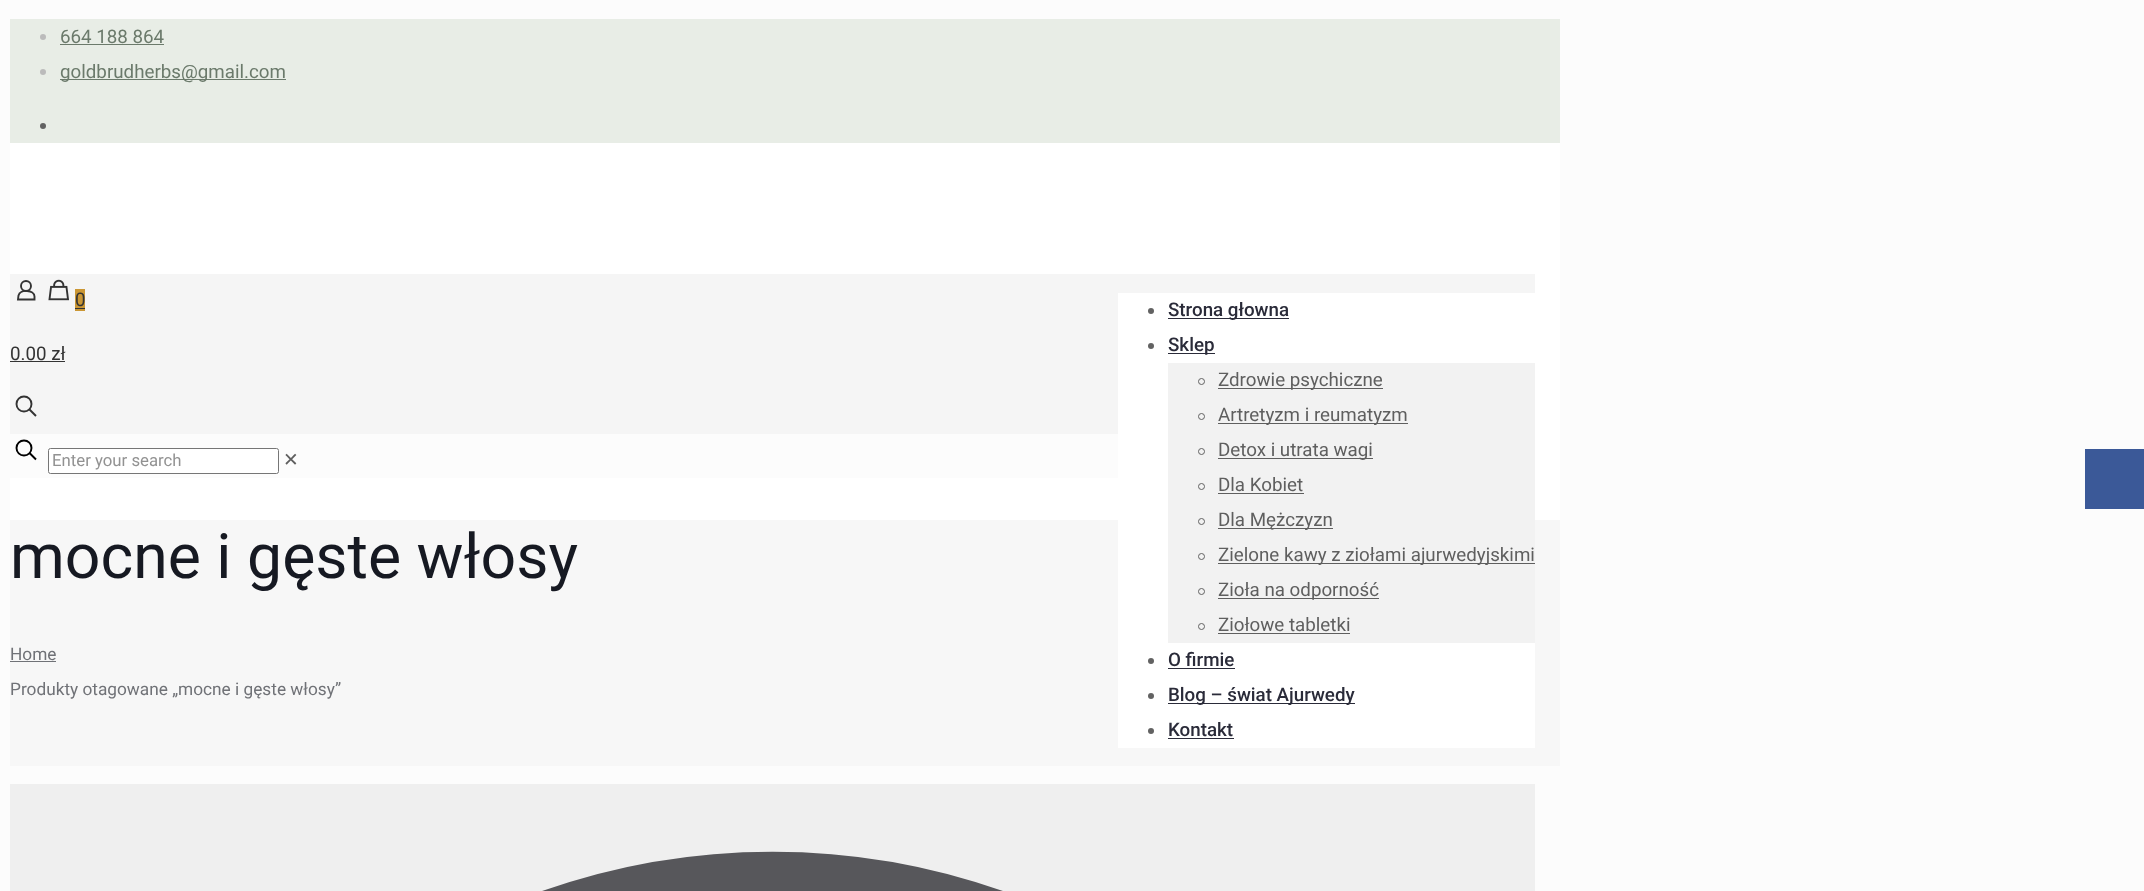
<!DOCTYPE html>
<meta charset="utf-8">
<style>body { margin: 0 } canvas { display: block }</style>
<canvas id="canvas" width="2144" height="891"></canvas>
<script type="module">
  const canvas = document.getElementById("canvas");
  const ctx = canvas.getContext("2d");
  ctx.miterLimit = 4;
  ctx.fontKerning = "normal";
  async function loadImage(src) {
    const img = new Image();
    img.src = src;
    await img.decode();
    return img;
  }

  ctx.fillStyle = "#fcfcfc";
  ctx.fillRect(0, 0, 2144, 891);
  ctx.fillStyle = "#ffffff";
  ctx.fillRect(10, 143, 1550, 377);
  ctx.fillStyle = "#e8ede6";
  ctx.fillRect(10, 19, 1550, 124);
  ctx.fillStyle = "#bbbbbb";
  ctx.beginPath();
  ctx.arc(43, 37, 3, 0, Math.PI * 2);
  ctx.fill();
  ctx.font = "18.75px Roboto";
  ctx.fillStyle = "#6b7a6b";
  ctx.fillText("664 188 864", 60, 43);
  ctx.fillRect(60, 44, 104, 1);
  ctx.fillStyle = "#bbbbbb";
  ctx.beginPath();
  ctx.arc(43, 72, 3, 0, Math.PI * 2);
  ctx.fill();
  ctx.fillStyle = "#6b7a6b";
  ctx.fillRect(60, 79, 226, 1);
  ctx.fillText("goldbrudherbs@gmail.com", 60, 78);
  ctx.fillStyle = "#626262";
  ctx.beginPath();
  ctx.arc(43, 126, 3, 0, Math.PI * 2);
  ctx.fill();
  ctx.fillStyle = "#f5f5f5";
  ctx.fillRect(10, 274, 1525, 160);
  ctx.beginPath();
  ctx.arc(26, 286, 5, 0, Math.PI * 2);
  ctx.strokeStyle = "#333333";
  ctx.lineWidth = 1.9;
  ctx.stroke();
  ctx.beginPath();
  ctx.moveTo(34.5, 296.5);
  ctx.lineTo(34.5, 299.5);
  ctx.lineTo(18, 299.5);
  ctx.lineTo(18.5, 295.5);
  ctx.bezierCurveTo(20, 289, 34.5, 289.5, 34.5, 296.5);
  ctx.closePath();
  ctx.stroke();
  ctx.drawImage(await loadImage("img1.png"), 48, 279, 21, 22);
  ctx.fillStyle = "#cb9734";
  ctx.fillRect(75, 289, 10, 22);
  ctx.fillStyle = "#333333";
  ctx.fillText("0", 75, 306);
  ctx.fillRect(75, 308, 10, 1);
  ctx.fillText("0.00 zł", 10, 360);
  ctx.fillRect(10, 361, 55, 1);
  ctx.beginPath();
  ctx.arc(24, 404, 7.5, 0, Math.PI * 2);
  ctx.stroke();
  ctx.beginPath();
  ctx.moveTo(29.5, 409.5);
  ctx.lineTo(36, 416);
  ctx.stroke();
  ctx.fillStyle = "#fcfcfc";
  ctx.fillRect(10, 434, 1108, 44);
  ctx.beginPath();
  ctx.arc(24, 448, 7.5, 0, Math.PI * 2);
  ctx.strokeStyle = "#000000";
  ctx.stroke();
  ctx.beginPath();
  ctx.moveTo(29.5, 453);
  ctx.lineTo(36, 459.5);
  ctx.stroke();
  ctx.fillStyle = "#ffffff";
  ctx.beginPath();
  ctx.roundRect(48.5, 448.5, 230, 25, 2);
  ctx.fill();
  ctx.strokeStyle = "#767676";
  ctx.lineWidth = 1;
  ctx.stroke();
  ctx.font = "16.75px Roboto";
  ctx.fillStyle = "#929292";
  ctx.fillText("Enter your search", 52, 466);
  ctx.font = "18.75px DejaVu Sans";
  ctx.fillStyle = "#5f5f5f";
  ctx.fillText("✕", 283, 466);
  ctx.fillStyle = "#f7f7f7";
  ctx.fillRect(10, 520, 1550, 246);
  ctx.fillStyle = "#ffffff";
  ctx.fillRect(1118, 293, 417, 455);
  ctx.fillStyle = "#626262";
  ctx.beginPath();
  ctx.arc(1151, 311, 3, 0, Math.PI * 2);
  ctx.fill();
  ctx.fillStyle = "#2a2b39";
  ctx.fillRect(1168, 318, 121, 1);
  ctx.font = "500 18.75px Roboto";
  ctx.fillText("Strona głowna", 1168, 316);
  ctx.fillStyle = "#626262";
  ctx.beginPath();
  ctx.arc(1151, 346, 3, 0, Math.PI * 2);
  ctx.fill();
  ctx.fillStyle = "#2a2b39";
  ctx.fillRect(1168, 353, 47, 1);
  ctx.fillText("Sklep", 1168, 351);
  ctx.fillStyle = "#f2f2f2";
  ctx.fillRect(1168, 363, 367, 280);
  ctx.beginPath();
  ctx.arc(1201.5, 381.5, 3, 0, Math.PI * 2);
  ctx.strokeStyle = "#626262";
  ctx.stroke();
  ctx.fillStyle = "#5f5f5f";
  ctx.fillRect(1218, 388, 165, 1);
  ctx.font = "18.75px Roboto";
  ctx.fillText("Zdrowie psychiczne", 1218, 386);
  ctx.beginPath();
  ctx.arc(1201.5, 416.5, 3, 0, Math.PI * 2);
  ctx.stroke();
  ctx.fillRect(1218, 423, 190, 1);
  ctx.fillText("Artretyzm i reumatyzm", 1218, 421);
  ctx.beginPath();
  ctx.arc(1201.5, 451.5, 3, 0, Math.PI * 2);
  ctx.stroke();
  ctx.fillRect(1218, 458, 155, 1);
  ctx.fillText("Detox i utrata wagi", 1218, 456);
  ctx.beginPath();
  ctx.arc(1201.5, 486.5, 3, 0, Math.PI * 2);
  ctx.stroke();
  ctx.fillText("Dla Kobiet", 1218, 491);
  ctx.fillRect(1218, 493, 86, 1);
  ctx.beginPath();
  ctx.arc(1201.5, 521.5, 3, 0, Math.PI * 2);
  ctx.stroke();
  ctx.fillRect(1218, 528, 115, 1);
  ctx.fillText("Dla Mężczyzn", 1218, 526);
  ctx.beginPath();
  ctx.arc(1201.5, 556.5, 3, 0, Math.PI * 2);
  ctx.stroke();
  ctx.fillRect(1218, 563, 317, 1);
  ctx.fillText("Zielone kawy z ziołami ajurwedyjskimi", 1218, 561);
  ctx.beginPath();
  ctx.arc(1201.5, 591.5, 3, 0, Math.PI * 2);
  ctx.stroke();
  ctx.fillRect(1218, 598, 161, 1);
  ctx.fillText("Zioła na odporność", 1218, 596);
  ctx.beginPath();
  ctx.arc(1201.5, 626.5, 3, 0, Math.PI * 2);
  ctx.stroke();
  ctx.fillText("Ziołowe tabletki", 1218, 631);
  ctx.fillRect(1218, 633, 132, 1);
  ctx.fillStyle = "#626262";
  ctx.beginPath();
  ctx.arc(1151, 661, 3, 0, Math.PI * 2);
  ctx.fill();
  ctx.font = "500 18.75px Roboto";
  ctx.fillStyle = "#2a2b39";
  ctx.fillText("O firmie", 1168, 666);
  ctx.fillRect(1168, 668, 67, 1);
  ctx.fillStyle = "#626262";
  ctx.beginPath();
  ctx.arc(1151, 696, 3, 0, Math.PI * 2);
  ctx.fill();
  ctx.fillStyle = "#2a2b39";
  ctx.fillRect(1168, 703, 187, 1);
  ctx.fillText("Blog – świat Ajurwedy", 1168, 701);
  ctx.fillStyle = "#626262";
  ctx.beginPath();
  ctx.arc(1151, 731, 3, 0, Math.PI * 2);
  ctx.fill();
  ctx.fillStyle = "#2a2b39";
  ctx.fillText("Kontakt", 1168, 736);
  ctx.fillRect(1168, 738, 66, 1);
  ctx.font = "62.5px Roboto";
  ctx.fillStyle = "#161922";
  ctx.fillText("mocne i gęste włosy", 10, 578);
  ctx.font = "17.25px Roboto";
  ctx.fillStyle = "#707277";
  ctx.fillText("Home", 10, 660);
  ctx.fillRect(10, 661, 46, 1);
  ctx.fillText("Produkty otagowane „mocne i gęste włosy”", 10, 695);
  ctx.fillStyle = "#efefef";
  ctx.fillRect(10, 784, 1525, 107);
  ctx.beginPath();
  ctx.arc(772.5, 1546, 653.5, 0, Math.PI * 2);
  ctx.strokeStyle = "#57575b";
  ctx.lineWidth = 81.7;
  ctx.stroke();
  ctx.fillStyle = "#3b5998";
  ctx.fillRect(2085, 449, 59, 60);
</script>
